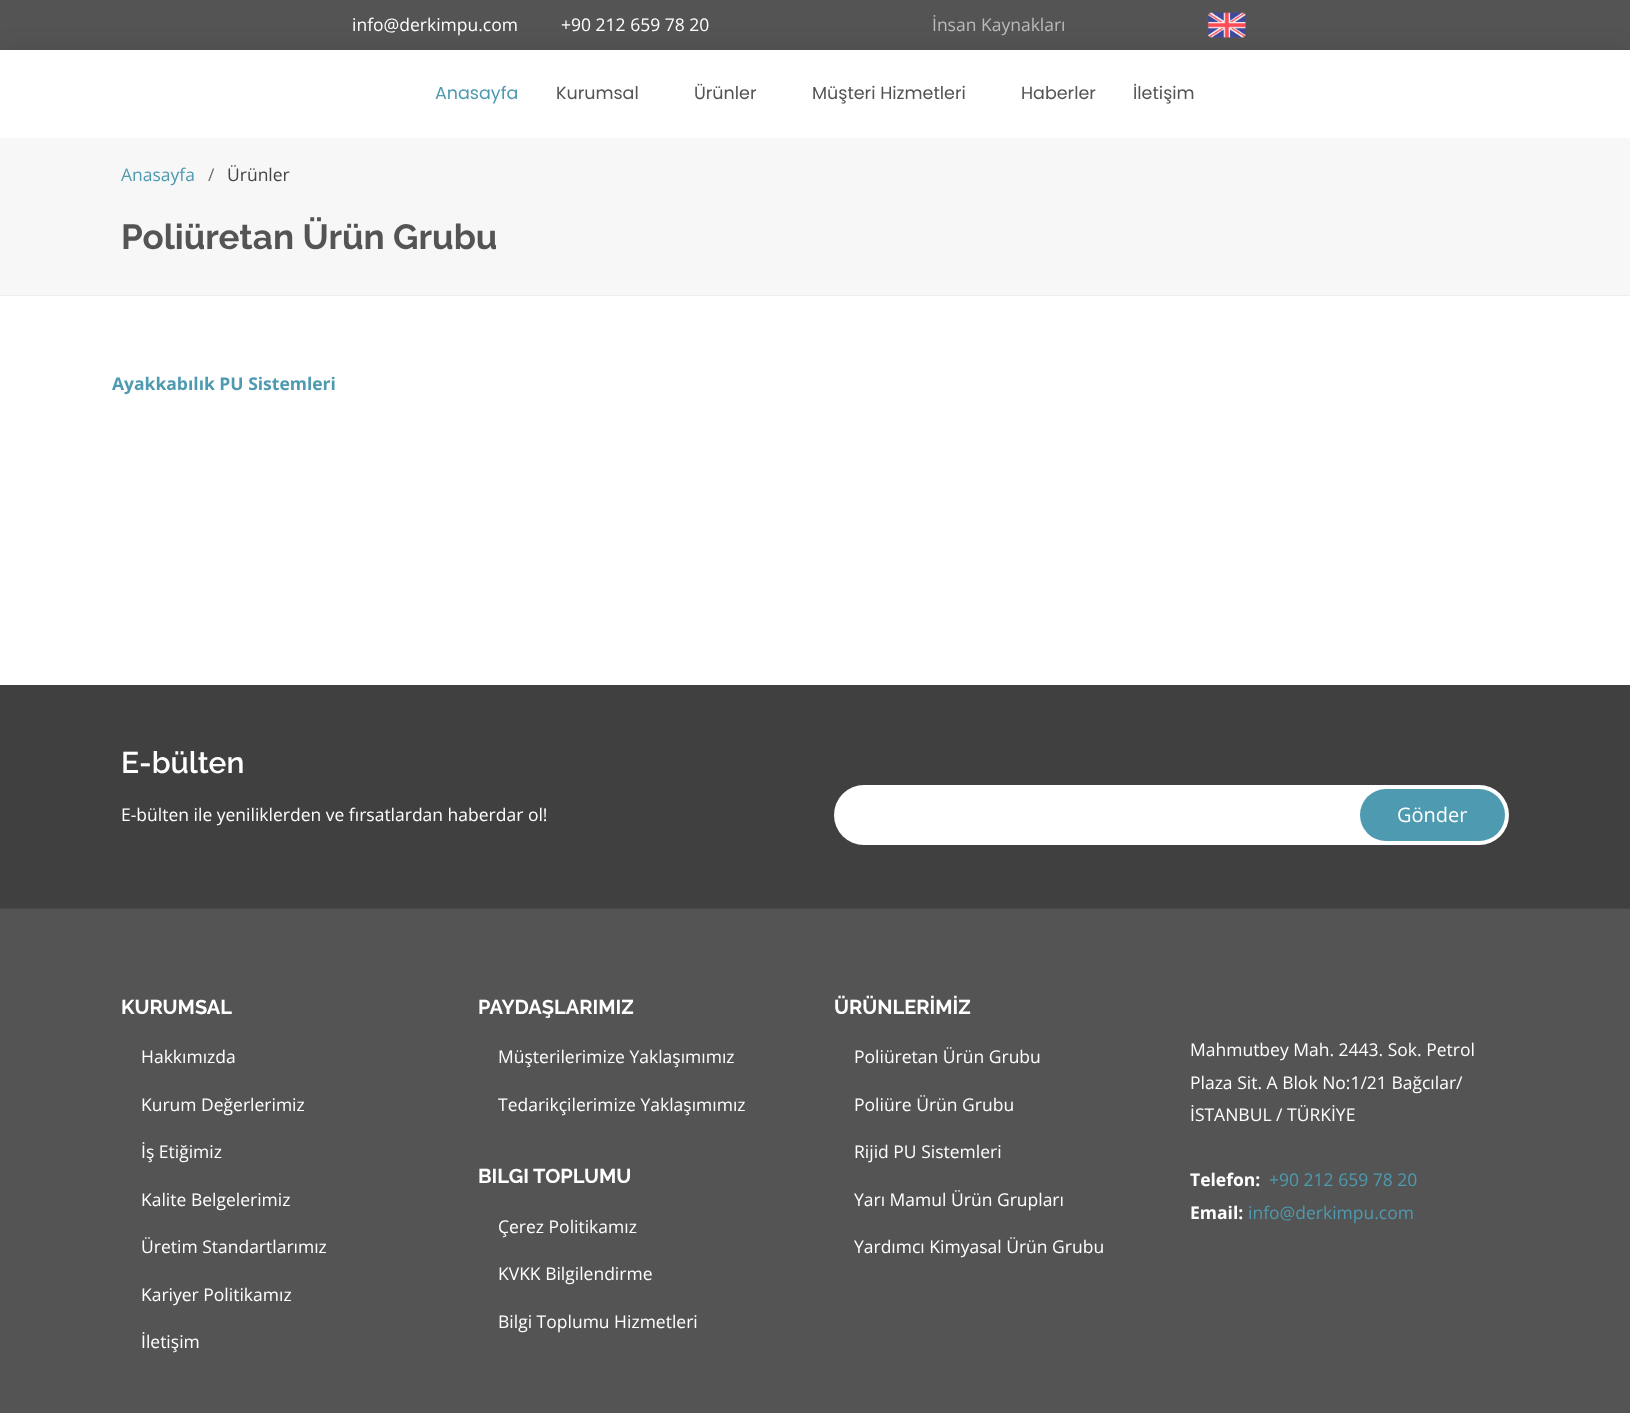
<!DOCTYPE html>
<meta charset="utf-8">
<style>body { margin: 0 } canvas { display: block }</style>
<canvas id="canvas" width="1630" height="1413"></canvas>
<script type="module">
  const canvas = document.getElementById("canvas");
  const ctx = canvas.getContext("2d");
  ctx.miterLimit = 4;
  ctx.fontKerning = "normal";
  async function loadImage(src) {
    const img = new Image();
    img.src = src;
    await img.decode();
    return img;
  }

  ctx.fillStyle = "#ffffff";
  ctx.fillRect(0, 0, 1630, 1413);
  ctx.fillStyle = "#545454";
  ctx.fillRect(0, 0, 1630, 50);
  ctx.fillStyle = "rgba(0, 0, 0, 0.1)";
  ctx.filter = "blur(12.5px)";
  ctx.beginPath();
  ctx.rect(0, 50, 1630, 88);
  ctx.fill();
  ctx.filter = "none";
  ctx.font = "17.5px Open Sans";
  ctx.fillStyle = "#ffffff";
  ctx.fillText("info@derkimpu.com", 352, 31);
  ctx.fillText("+90 212 659 78 20", 561, 31);
  ctx.fillStyle = "#bababa";
  ctx.fillText("İnsan Kaynakları", 932, 31);
  ctx.drawImage(await loadImage("img1.png"), 1207, 12, 39, 26);
  ctx.fillStyle = "#ffffff";
  ctx.fillRect(0, 50, 1630, 88);
  ctx.font = "17.5px Poppins";
  ctx.fillStyle = "#4e9ab0";
  ctx.fillText("Anasayfa", 435, 99);
  ctx.fillStyle = "#545454";
  ctx.fillText("Kurumsal", 556, 99);
  ctx.fillText("Ürünler", 694, 99);
  ctx.fillText("Müşteri Hizmetleri", 812, 99);
  ctx.fillText("Haberler", 1021, 99);
  ctx.fillText("İletişim", 1133, 99);
  ctx.fillStyle = "#f7f7f7";
  ctx.fillRect(0, 138, 1630, 157);
  ctx.fillStyle = "#ededed";
  ctx.fillRect(0, 295, 1630, 1);
  ctx.font = "17.5px Open Sans";
  ctx.fillStyle = "#4e9ab0";
  ctx.fillText("Anasayfa", 121, 181);
  ctx.fillStyle = "#6e6e6e";
  ctx.fillText("/", 208, 181);
  ctx.fillStyle = "#444444";
  ctx.fillText("Ürünler", 227, 181);
  ctx.font = "bold 35px Raleway";
  ctx.fillStyle = "#545454";
  ctx.fillText("Poliüretan Ürün Grubu", 121, 249);
  ctx.font = "bold 17.5px Open Sans";
  ctx.fillStyle = "#4e9ab0";
  ctx.fillText("Ayakkabılık PU Sistemleri", 112, 390);
  ctx.fillStyle = "#404040";
  ctx.fillRect(0, 685, 1630, 223);
  ctx.font = "600 30px Raleway";
  ctx.fillStyle = "#ffffff";
  ctx.fillText("E-bülten", 121, 773);
  ctx.font = "17.5px Open Sans";
  ctx.fillText("E-bülten ile yeniliklerden ve fırsatlardan haberdar ol!", 121, 821);
  ctx.beginPath();
  ctx.roundRect(834, 785, 675, 60, 30);
  ctx.fill();
  ctx.fillStyle = "#4e9ab0";
  ctx.beginPath();
  ctx.roundRect(1360, 789, 145, 52, 26);
  ctx.fill();
  ctx.font = "20px Open Sans";
  ctx.fillStyle = "#ffffff";
  ctx.fillText("Gönder", 1397, 822);
  ctx.fillStyle = "#545454";
  ctx.fillRect(0, 909, 1630, 504);
  ctx.fillStyle = "#474747";
  ctx.fillRect(0, 908, 1630, 1);
  ctx.font = "bold 20px Raleway";
  ctx.fillStyle = "#ffffff";
  ctx.fillText("KURUMSAL", 121, 1014);
  ctx.font = "17.5px Open Sans";
  ctx.fillText("Hakkımızda", 141, 1063);
  ctx.fillText("Kurum Değerlerimiz", 141, 1111);
  ctx.fillText("İş Etiğimiz", 141, 1158);
  ctx.fillText("Kalite Belgelerimiz", 141, 1206);
  ctx.fillText("Üretim Standartlarımız", 141, 1253);
  ctx.fillText("Kariyer Politikamız", 141, 1301);
  ctx.fillText("İletişim", 141, 1348);
  ctx.font = "bold 20px Raleway";
  ctx.fillText("PAYDAŞLARIMIZ", 478, 1014);
  ctx.font = "17.5px Open Sans";
  ctx.fillText("Müşterilerimize Yaklaşımımız", 498, 1063);
  ctx.fillText("Tedarikçilerimize Yaklaşımımız", 498, 1111);
  ctx.font = "bold 20px Raleway";
  ctx.fillText("BILGI TOPLUMU", 478, 1183);
  ctx.font = "17.5px Open Sans";
  ctx.fillText("Çerez Politikamız", 498, 1233);
  ctx.fillText("KVKK Bilgilendirme", 498, 1280);
  ctx.fillText("Bilgi Toplumu Hizmetleri", 498, 1328);
  ctx.font = "bold 20px Raleway";
  ctx.fillText("ÜRÜNLERİMİZ", 834, 1014);
  ctx.font = "17.5px Open Sans";
  ctx.fillText("Poliüretan Ürün Grubu", 854, 1063);
  ctx.fillText("Poliüre Ürün Grubu", 854, 1111);
  ctx.fillText("Rijid PU Sistemleri", 854, 1158);
  ctx.fillText("Yarı Mamul Ürün Grupları", 854, 1206);
  ctx.fillText("Yardımcı Kimyasal Ürün Grubu", 854, 1253);
  ctx.fillText("Mahmutbey Mah. 2443. Sok. Petrol", 1190, 1056);
  ctx.fillText("Plaza Sit. A Blok No:1/21 Bağcılar/", 1190, 1089);
  ctx.fillText("İSTANBUL / TÜRKİYE", 1190, 1121);
  ctx.font = "bold 17.5px Open Sans";
  ctx.fillText("Telefon:", 1190, 1186);
  ctx.font = "17.5px Open Sans";
  ctx.fillStyle = "#4e9ab0";
  ctx.fillText("+90 212 659 78 20", 1269, 1186);
  ctx.font = "bold 17.5px Open Sans";
  ctx.fillStyle = "#ffffff";
  ctx.fillText("Email:", 1190, 1219);
  ctx.font = "17.5px Open Sans";
  ctx.fillStyle = "#4e9ab0";
  ctx.fillText("info@derkimpu.com", 1248, 1219);
</script>
